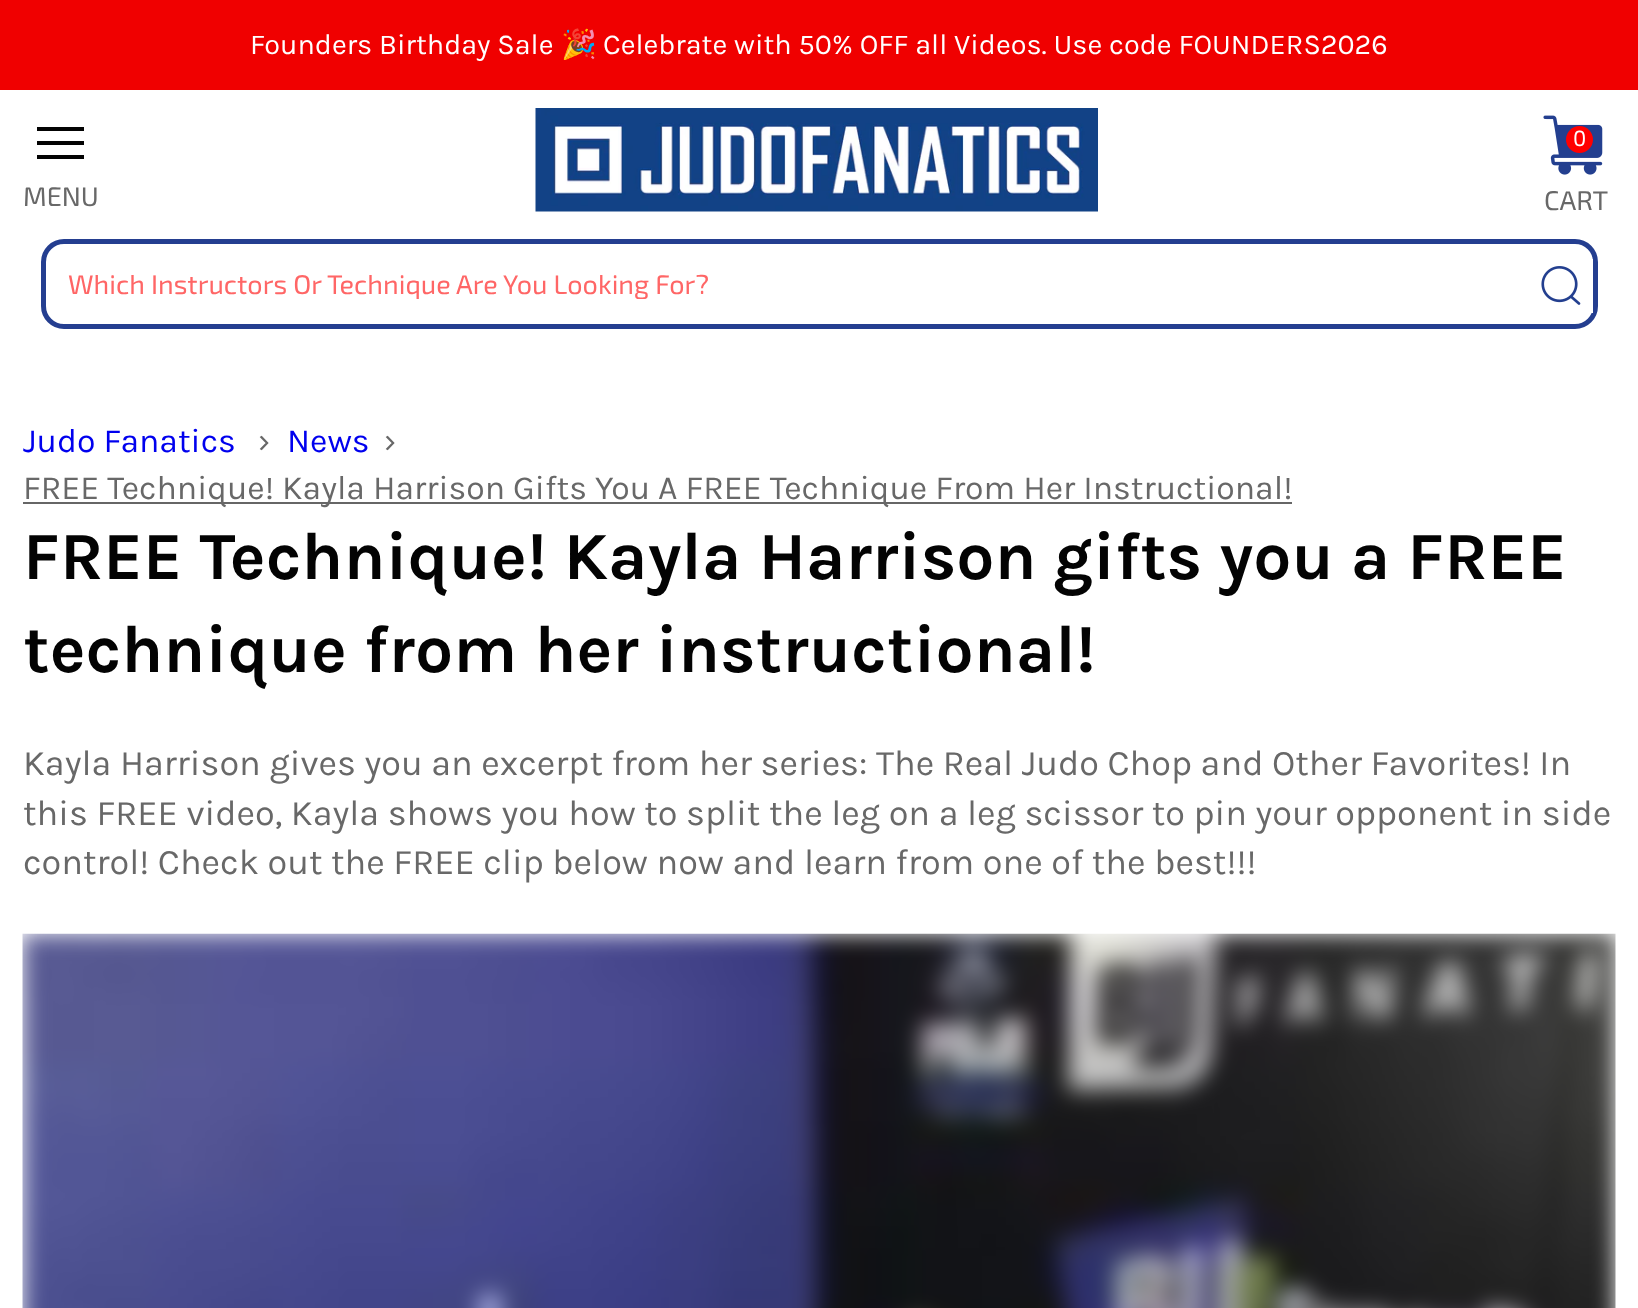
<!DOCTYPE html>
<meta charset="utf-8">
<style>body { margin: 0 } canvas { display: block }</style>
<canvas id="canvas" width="1638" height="1308"></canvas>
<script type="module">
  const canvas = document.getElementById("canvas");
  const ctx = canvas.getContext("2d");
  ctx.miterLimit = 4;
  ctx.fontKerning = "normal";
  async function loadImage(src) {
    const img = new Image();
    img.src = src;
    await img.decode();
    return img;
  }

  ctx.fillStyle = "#ffffff";
  ctx.fillRect(0, 0, 1638, 1308);
  ctx.fillStyle = "#f00000";
  ctx.fillRect(0, 0, 1638, 90);
  ctx.font = "28.8px Karla";
  ctx.fillStyle = "#ffffff";
  ctx.fillText("Founders Birthday Sale", 250, 54);
  ctx.font = "28.8px Noto Color Emoji";
  ctx.fillText("🎉", 561, 54);
  ctx.font = "28.8px Karla";
  ctx.fillText("Celebrate with 50% OFF all Videos. Use code FOUNDERS2026", 603, 54);
  ctx.fillStyle = "#030303";
  ctx.beginPath();
  ctx.moveTo(37, 141);
  ctx.lineTo(84, 141);
  ctx.lineTo(84, 145);
  ctx.lineTo(37, 145);
  ctx.closePath();
  ctx.moveTo(37, 127);
  ctx.lineTo(84, 127);
  ctx.lineTo(84, 131);
  ctx.lineTo(37, 131);
  ctx.closePath();
  ctx.moveTo(37, 155);
  ctx.lineTo(84, 155);
  ctx.lineTo(84, 159);
  ctx.lineTo(37, 159);
  ctx.closePath();
  ctx.fill();
  ctx.font = "27px 'Exo 2'";
  ctx.fillStyle = "#686868";
  ctx.fillText("MENU", 23, 206);
  ctx.drawImage(await loadImage("img1.png"), 535, 108, 563, 104);
  ctx.drawImage(await loadImage("img2.png"), 1543, 115, 60, 60);
  ctx.fillStyle = "#ff0000";
  ctx.beginPath();
  ctx.arc(1579.5, 139.5, 13.5, 0, Math.PI * 2);
  ctx.fill();
  ctx.font = "22px 'Exo 2'";
  ctx.fillStyle = "#ffffff";
  ctx.fillText("0", 1573, 146);
  ctx.font = "27px 'Exo 2'";
  ctx.fillStyle = "#686868";
  ctx.fillText("CART", 1544, 210);
  ctx.beginPath();
  ctx.roundRect(43.5, 241.5, 1552, 85, 20.5);
  ctx.strokeStyle = "#243e90";
  ctx.lineWidth = 5;
  ctx.stroke();
  ctx.save();
  ctx.beginPath();
  ctx.rect(68, 268, 1469, 31);
  ctx.clip();
  ctx.fillStyle = "#ff6666";
  ctx.fillText("Which Instructors Or Technique Are You Looking For?", 68, 294);
  ctx.restore();
  ctx.fillStyle = "#ffffff";
  ctx.fillRect(1591, 259, 2, 54);
  ctx.drawImage(await loadImage("img3.png"), 1541, 266, 40, 39);
  ctx.font = "33.75px Karla";
  ctx.fillStyle = "#0000ee";
  ctx.fillText("Judo Fanatics", 23, 452);
  ctx.fillStyle = "#686868";
  ctx.fillText("›", 258, 452);
  ctx.fillStyle = "#0000ee";
  ctx.fillText("News", 287, 452);
  ctx.fillStyle = "#686868";
  ctx.fillText("›", 384, 452);
  ctx.fillStyle = "#666666";
  ctx.fillRect(23, 502, 1269, 2);
  ctx.fillStyle = "#686868";
  ctx.fillText("FREE Technique! Kayla Harrison Gifts You A FREE Technique From Her Instructional!", 23, 499);
  ctx.font = "bold 67.5px Karla";
  ctx.fillStyle = "#030303";
  ctx.fillText("FREE Technique! Kayla Harrison gifts you a FREE", 23, 579);
  ctx.fillText("technique from her instructional!", 23, 672);
  ctx.font = "36px Karla";
  ctx.fillStyle = "#686868";
  ctx.fillText("Kayla Harrison gives you an excerpt from her series: The Real Judo Chop and Other Favorites! In", 23, 775);
  ctx.fillText("this FREE video, Kayla shows you how to split the leg on a leg scissor to pin your opponent in side", 23, 825);
  ctx.fillText("control! Check out the FREE clip below now and learn from one of the best!!!", 23, 874);
  ctx.drawImage(await loadImage("img4.png"), 22, 933, 1594, 375);
</script>
